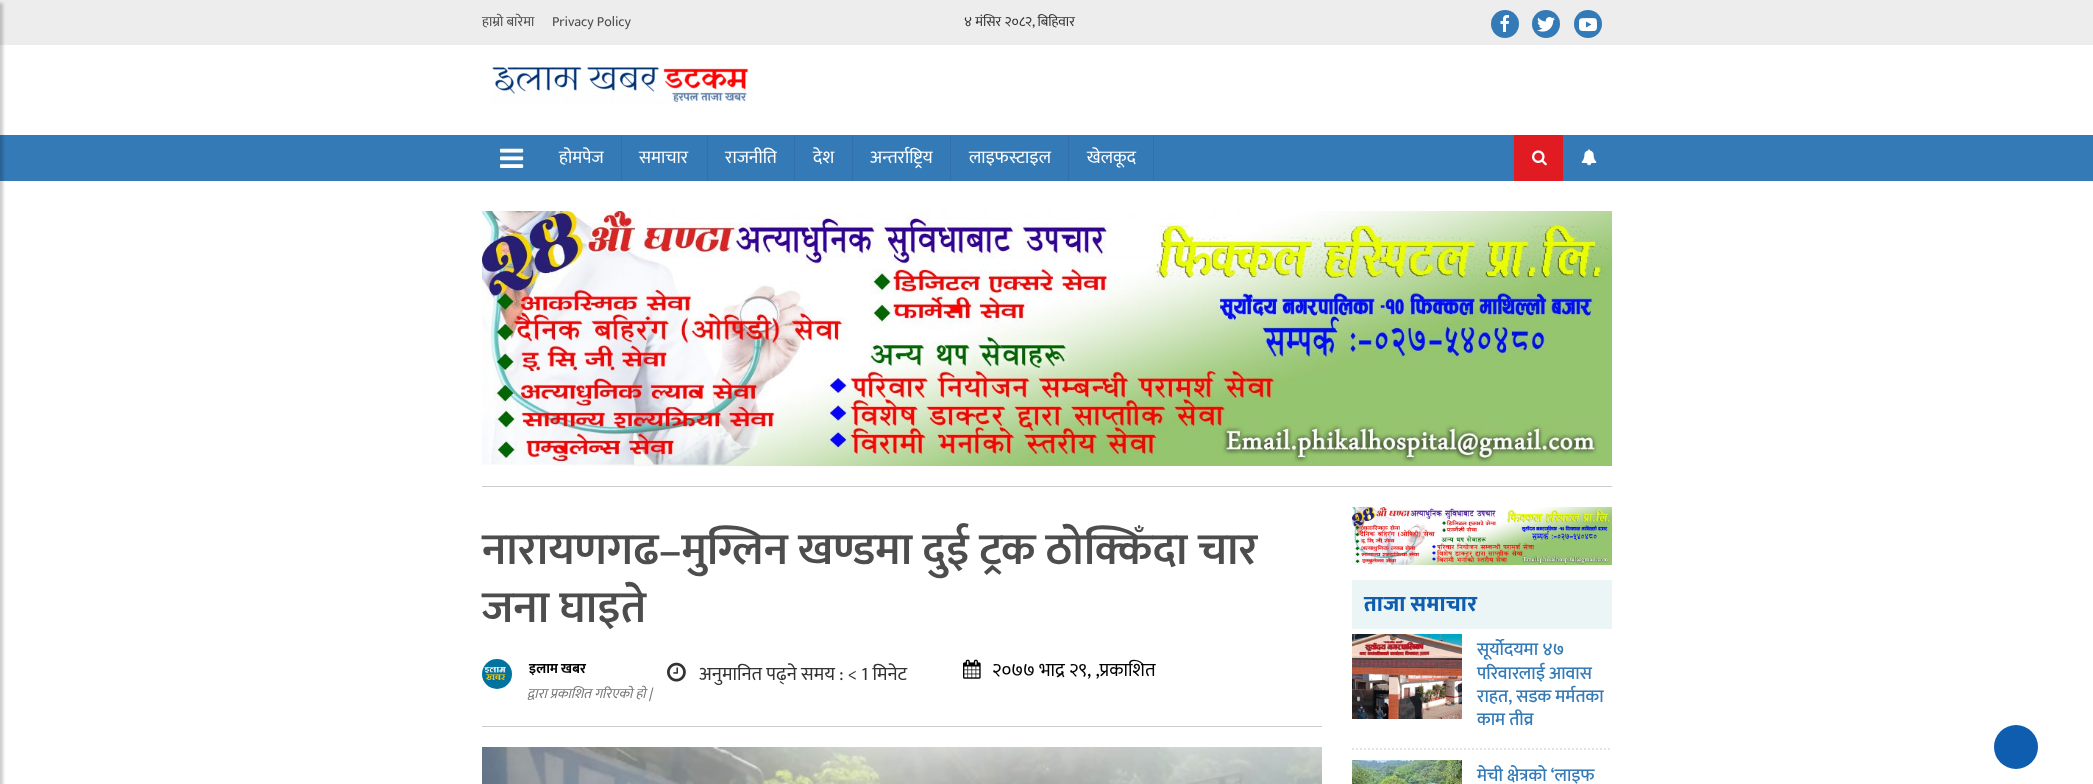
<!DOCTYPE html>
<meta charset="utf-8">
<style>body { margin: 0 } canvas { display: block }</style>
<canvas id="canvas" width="2093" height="784"></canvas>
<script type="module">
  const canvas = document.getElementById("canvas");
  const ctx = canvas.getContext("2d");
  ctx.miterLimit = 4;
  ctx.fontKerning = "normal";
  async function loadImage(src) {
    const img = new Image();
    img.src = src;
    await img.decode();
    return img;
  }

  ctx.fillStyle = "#ffffff";
  ctx.fillRect(0, 0, 2093, 784);
  ctx.fillStyle = "#ededed";
  ctx.fillRect(0, 0, 2093, 45);
  ctx.fillStyle = "#337ab7";
  ctx.fillRect(0, 135, 2093, 46);
  ctx.fillStyle = "rgba(0, 0, 0, 0.2)";
  ctx.filter = "blur(1.5px)";
  ctx.beginPath();
  ctx.rect(-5, 3, 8, 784);
  ctx.fill();
  ctx.filter = "none";
  ctx.font = "14px Ek Mukta";
  ctx.fillStyle = "#4d4d4d";
  ctx.fillText("हाम्रो बारेमा", 482, 26);
  ctx.fillText("Privacy Policy", 552, 26);
  ctx.drawImage(await loadImage("img1.png"), 964, 14, 112, 14);
  ctx.fillStyle = "#337ab7";
  ctx.beginPath();
  ctx.arc(1505, 24, 14, 0, Math.PI * 2);
  ctx.fill();
  ctx.drawImage(await loadImage("img2.png"), 1500, 15, 9, 17);
  ctx.beginPath();
  ctx.arc(1546, 24, 14, 0, Math.PI * 2);
  ctx.fill();
  ctx.drawImage(await loadImage("img3.png"), 1537, 17, 18, 15);
  ctx.beginPath();
  ctx.arc(1588, 24, 14, 0, Math.PI * 2);
  ctx.fill();
  ctx.drawImage(await loadImage("img4.png"), 1579, 18, 18, 14);
  ctx.drawImage(await loadImage("img5.png"), 492, 67, 261, 37);
  ctx.drawImage(await loadImage("img6.png"), 500, 148, 24, 20);
  ctx.fillStyle = "#346ead";
  ctx.fillRect(621, 135, 1, 46);
  ctx.font = "18px Ek Mukta";
  ctx.fillStyle = "#ffffff";
  ctx.fillText("होमपेज", 559, 163);
  ctx.fillStyle = "#346ead";
  ctx.fillRect(707, 135, 1, 46);
  ctx.fillStyle = "#ffffff";
  ctx.fillText("समाचार", 639, 163);
  ctx.fillStyle = "#346ead";
  ctx.fillRect(794, 135, 1, 46);
  ctx.fillStyle = "#ffffff";
  ctx.fillText("राजनीति", 725, 163);
  ctx.fillStyle = "#346ead";
  ctx.fillRect(852, 135, 1, 46);
  ctx.fillStyle = "#ffffff";
  ctx.fillText("देश", 813, 163);
  ctx.fillStyle = "#346ead";
  ctx.fillRect(950, 135, 1, 46);
  ctx.fillStyle = "#ffffff";
  ctx.fillText("अन्तर्राष्ट्रिय", 870, 163);
  ctx.fillStyle = "#346ead";
  ctx.fillRect(1068, 135, 1, 46);
  ctx.fillStyle = "#ffffff";
  ctx.fillText("लाइफस्टाइल", 969, 163);
  ctx.fillStyle = "#346ead";
  ctx.fillRect(1153, 135, 1, 46);
  ctx.fillStyle = "#ffffff";
  ctx.fillText("खेलकूद", 1087, 163);
  ctx.fillStyle = "#e11b22";
  ctx.fillRect(1514, 135, 49, 46);
  ctx.drawImage(await loadImage("img7.png"), 1532, 150, 15, 16);
  ctx.drawImage(await loadImage("img8.png"), 1581, 149, 16, 17);
  ctx.drawImage(await loadImage("img9.png"), 482, 211, 1130, 255);
  ctx.fillStyle = "#cccccc";
  ctx.fillRect(482, 486, 1130, 1);
  ctx.font = "600 45px Ek Mukta";
  ctx.fillStyle = "#4d4d4d";
  ctx.fillText("नारायणगढ–मुग्लिन खण्डमा दुई ट्रक ठोक्किँदा चार", 482, 564);
  ctx.fillText("जना घाइते", 482, 622);
  ctx.drawImage(await loadImage("img10.png"), 482, 659, 30, 30);
  ctx.font = "bold 14px Ek Mukta";
  ctx.fillStyle = "#000000";
  ctx.fillText("इलाम खबर", 529, 673);
  ctx.font = "italic 14px Ek Mukta";
  ctx.fillStyle = "#777777";
  ctx.fillText("द्वारा प्रकाशित गरिएको हो |", 527, 698);
  ctx.drawImage(await loadImage("img11.png"), 667, 662, 19, 20);
  ctx.font = "19px Ek Mukta";
  ctx.fillStyle = "#333333";
  ctx.fillText("अनुमानित पढ्ने समय : < 1 मिनेट", 699, 680);
  ctx.drawImage(await loadImage("img12.png"), 963, 659, 18, 20);
  ctx.fillStyle = "#000000";
  ctx.fillText("२०७७ भाद्र २९, ,प्रकाशित", 992, 676);
  ctx.fillStyle = "#cccccc";
  ctx.fillRect(482, 726, 840, 1);
  ctx.drawImage(await loadImage("img13.png"), 482, 747, 840, 37);
  ctx.drawImage(await loadImage("img14.png"), 1352, 507, 260, 58);
  ctx.fillStyle = "#ebf5f6";
  ctx.fillRect(1352, 580, 260, 49);
  ctx.letterSpacing = "0.6px";
  ctx.wordSpacing = "-1px";
  ctx.font = "800 22px Ek Mukta";
  ctx.fillStyle = "#0e5dae";
  ctx.fillText("ताजा समाचार", 1364, 611);
  ctx.beginPath();
  ctx.moveTo(1352, 749);
  ctx.lineTo(1612, 749);
  ctx.strokeStyle = "#e4e4e4";
  ctx.lineWidth = 2;
  ctx.setLineDash([2, 2]);
  ctx.stroke();
  ctx.drawImage(await loadImage("img15.png"), 1352, 634, 110, 85);
  ctx.letterSpacing = "0px";
  ctx.wordSpacing = "0px";
  ctx.font = "500 18px Ek Mukta";
  ctx.fillStyle = "#337ab7";
  ctx.fillText("सूर्योदयमा ४७", 1477, 655);
  ctx.fillText("परिवारलाई आवास", 1477, 679);
  ctx.fillText("राहत, सडक मर्मतका", 1477, 702);
  ctx.fillText("काम तीव्र", 1477, 725);
  ctx.drawImage(await loadImage("img16.png"), 1352, 760, 110, 24);
  ctx.fillText("मेची क्षेत्रको ‘लाइफ", 1477, 781);
  ctx.fillStyle = "#0e5dae";
  ctx.beginPath();
  ctx.arc(2016, 747, 22, 0, Math.PI * 2);
  ctx.fill();
</script>
